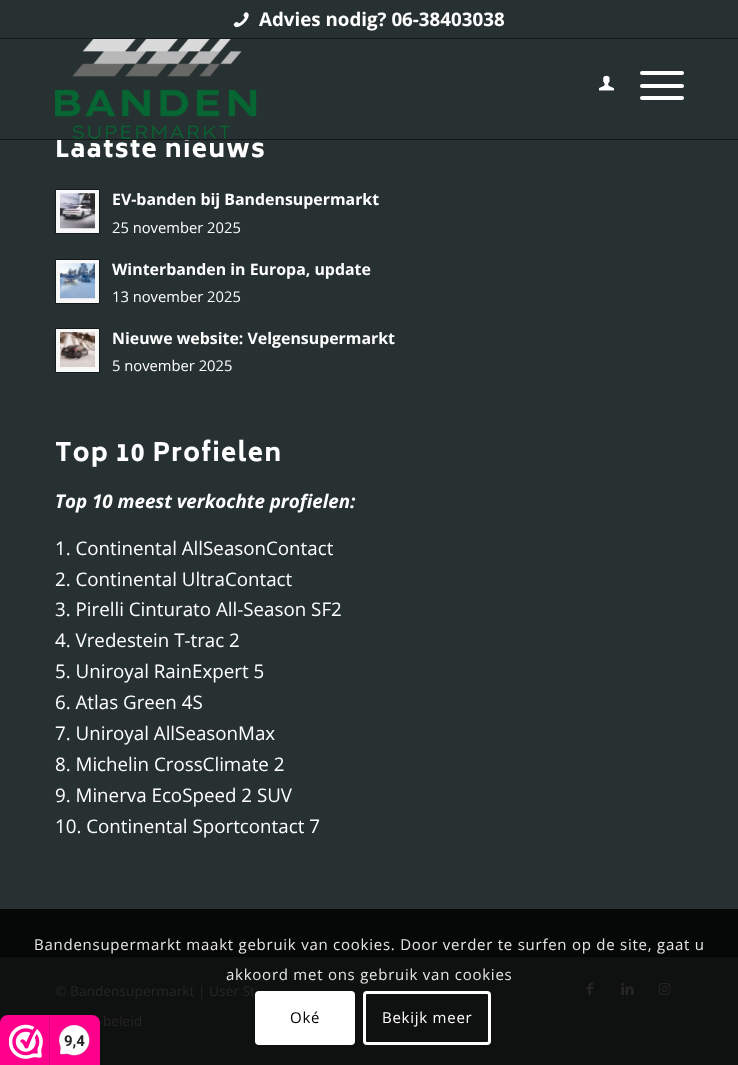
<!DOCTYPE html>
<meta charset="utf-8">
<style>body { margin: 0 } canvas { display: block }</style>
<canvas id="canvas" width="738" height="1065"></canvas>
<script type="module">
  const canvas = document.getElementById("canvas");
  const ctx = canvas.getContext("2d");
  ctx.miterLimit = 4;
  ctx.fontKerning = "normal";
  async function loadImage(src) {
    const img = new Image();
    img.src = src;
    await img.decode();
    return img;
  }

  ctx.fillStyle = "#0f1010";
  ctx.fillRect(0, 0, 738, 1065);
  ctx.fillStyle = "#273131";
  ctx.fillRect(0, 0, 738, 38);
  ctx.fillStyle = "#141a1a";
  ctx.fillRect(0, 38, 738, 1);
  ctx.drawImage(await loadImage("img1.png"), 233, 12, 16, 16);
  ctx.font = "bold 18.75px Open Sans";
  ctx.fillStyle = "#ffffff";
  ctx.fillText("Advies nodig? 06-38403038", 259, 26);
  ctx.fillStyle = "#273131";
  ctx.fillRect(0, 140, 738, 769);
  ctx.letterSpacing = "1.25px";
  ctx.font = "800 25px Biryani";
  ctx.fillStyle = "#ffffff";
  ctx.fillText("Laatste nieuws", 55, 157);
  ctx.fillStyle = "#273131";
  ctx.fillRect(0, 39, 738, 100);
  ctx.fillStyle = "#141a1a";
  ctx.fillRect(0, 139, 738, 1);
  ctx.drawImage(await loadImage("img2.png"), 55, 39, 202, 100);
  ctx.drawImage(await loadImage("img3.png"), 599, 75, 16, 16);
  ctx.fillStyle = "#ffffff";
  ctx.beginPath();
  ctx.roundRect(640, 84, 44, 4, 2);
  ctx.fill();
  ctx.beginPath();
  ctx.roundRect(640, 71, 44, 4, 2);
  ctx.fill();
  ctx.beginPath();
  ctx.roundRect(640, 96, 44, 4, 2);
  ctx.fill();
  ctx.fillStyle = "#060707";
  ctx.fillRect(0, 909, 738, 47);
  ctx.fillStyle = "#f8f8f8";
  ctx.beginPath();
  ctx.rect(55.5, 189.5, 44, 44);
  ctx.fill();
  ctx.strokeStyle = "#141a1a";
  ctx.stroke();
  ctx.drawImage(await loadImage("img4.png"), 60, 193, 35, 36);
  ctx.letterSpacing = "0px";
  ctx.font = "bold 15.9px Open Sans";
  ctx.fillStyle = "#ffffff";
  ctx.fillText("EV-banden bij Bandensupermarkt", 112, 205);
  ctx.font = "14.75px Open Sans";
  ctx.fillText("25 november 2025", 112, 233);
  ctx.fillStyle = "#f8f8f8";
  ctx.beginPath();
  ctx.rect(55.5, 259.5, 44, 44);
  ctx.fill();
  ctx.stroke();
  ctx.drawImage(await loadImage("img5.png"), 60, 263, 35, 36);
  ctx.font = "bold 15.9px Open Sans";
  ctx.fillStyle = "#ffffff";
  ctx.fillText("Winterbanden in Europa, update", 112, 275);
  ctx.font = "14.75px Open Sans";
  ctx.fillText("13 november 2025", 112, 302);
  ctx.fillStyle = "#f8f8f8";
  ctx.beginPath();
  ctx.rect(55.5, 328.5, 44, 44);
  ctx.fill();
  ctx.stroke();
  ctx.drawImage(await loadImage("img6.png"), 60, 332, 35, 35);
  ctx.font = "bold 15.9px Open Sans";
  ctx.fillStyle = "#ffffff";
  ctx.fillText("Nieuwe website: Velgensupermarkt", 112, 344);
  ctx.font = "14.75px Open Sans";
  ctx.fillText("5 november 2025", 112, 371);
  ctx.letterSpacing = "1.25px";
  ctx.font = "800 25px Biryani";
  ctx.fillText("Top 10 Profielen", 55, 461);
  ctx.letterSpacing = "0px";
  ctx.font = "italic bold 18.75px Open Sans";
  ctx.fillText("Top 10 meest verkochte profielen:", 55, 508);
  ctx.font = "18.75px Open Sans";
  ctx.fillText("1. Continental AllSeasonContact", 55, 555);
  ctx.fillText("2. Continental UltraContact", 55, 586);
  ctx.fillText("3. Pirelli Cinturato All-Season SF2", 55, 616);
  ctx.fillText("4. Vredestein T-trac 2", 55, 647);
  ctx.fillText("5. Uniroyal RainExpert 5", 55, 678);
  ctx.fillText("6. Atlas Green 4S", 55, 709);
  ctx.fillText("7. Uniroyal AllSeasonMax", 55, 740);
  ctx.fillText("8. Michelin CrossClimate 2", 55, 771);
  ctx.fillText("9. Minerva EcoSpeed 2 SUV", 55, 802);
  ctx.fillText("10. Continental Sportcontact 7", 55, 833);
  ctx.fillStyle = "#030404";
  ctx.fillRect(0, 956, 738, 1);
  ctx.font = "13.75px Open Sans";
  ctx.fillStyle = "#262626";
  ctx.fillText("© Bandensupermarkt | User St", 55, 996);
  ctx.drawImage(await loadImage("img7.png"), 586, 982, 8, 14);
  ctx.drawImage(await loadImage("img8.png"), 621, 982, 13, 13);
  ctx.drawImage(await loadImage("img9.png"), 658, 983, 13, 12);
  ctx.fillText("beleid", 103, 1026);
  ctx.letterSpacing = "0.75px";
  ctx.font = "15px Open Sans";
  ctx.fillStyle = "#e6e6e6";
  ctx.fillText("Bandensupermarkt maakt gebruik van cookies. Door verder te surfen op de site, gaat u", 34, 950);
  ctx.fillText("akkoord met ons gebruik van cookies", 226, 980);
  ctx.fillStyle = "#ffffff";
  ctx.beginPath();
  ctx.roundRect(255, 991, 100, 54, 4);
  ctx.fill();
  ctx.fillStyle = "#000000";
  ctx.fillText("Oké", 290, 1023);
  ctx.beginPath();
  ctx.roundRect(364.5, 992.5, 125, 51, 2.5);
  ctx.strokeStyle = "#ffffff";
  ctx.lineWidth = 3;
  ctx.stroke();
  ctx.fillStyle = "#ffffff";
  ctx.fillText("Bekijk meer", 382, 1023);
  ctx.fillStyle = "#fe008c";
  ctx.beginPath();
  ctx.roundRect(0, 1015, 100, 50, [8, 8, 0, 0]);
  ctx.fill();
  ctx.drawImage(await loadImage("img10.png"), 9, 1024, 34, 35);
  ctx.fillStyle = "#d80077";
  ctx.fillRect(49, 1016, 1, 49);
  ctx.drawImage(await loadImage("img11.png"), 59, 1025, 31, 31);
  ctx.letterSpacing = "0px";
  ctx.font = "bold 15px Roboto";
  ctx.fillStyle = "#262626";
  ctx.fillText("9,4", 64, 1046);
</script>
